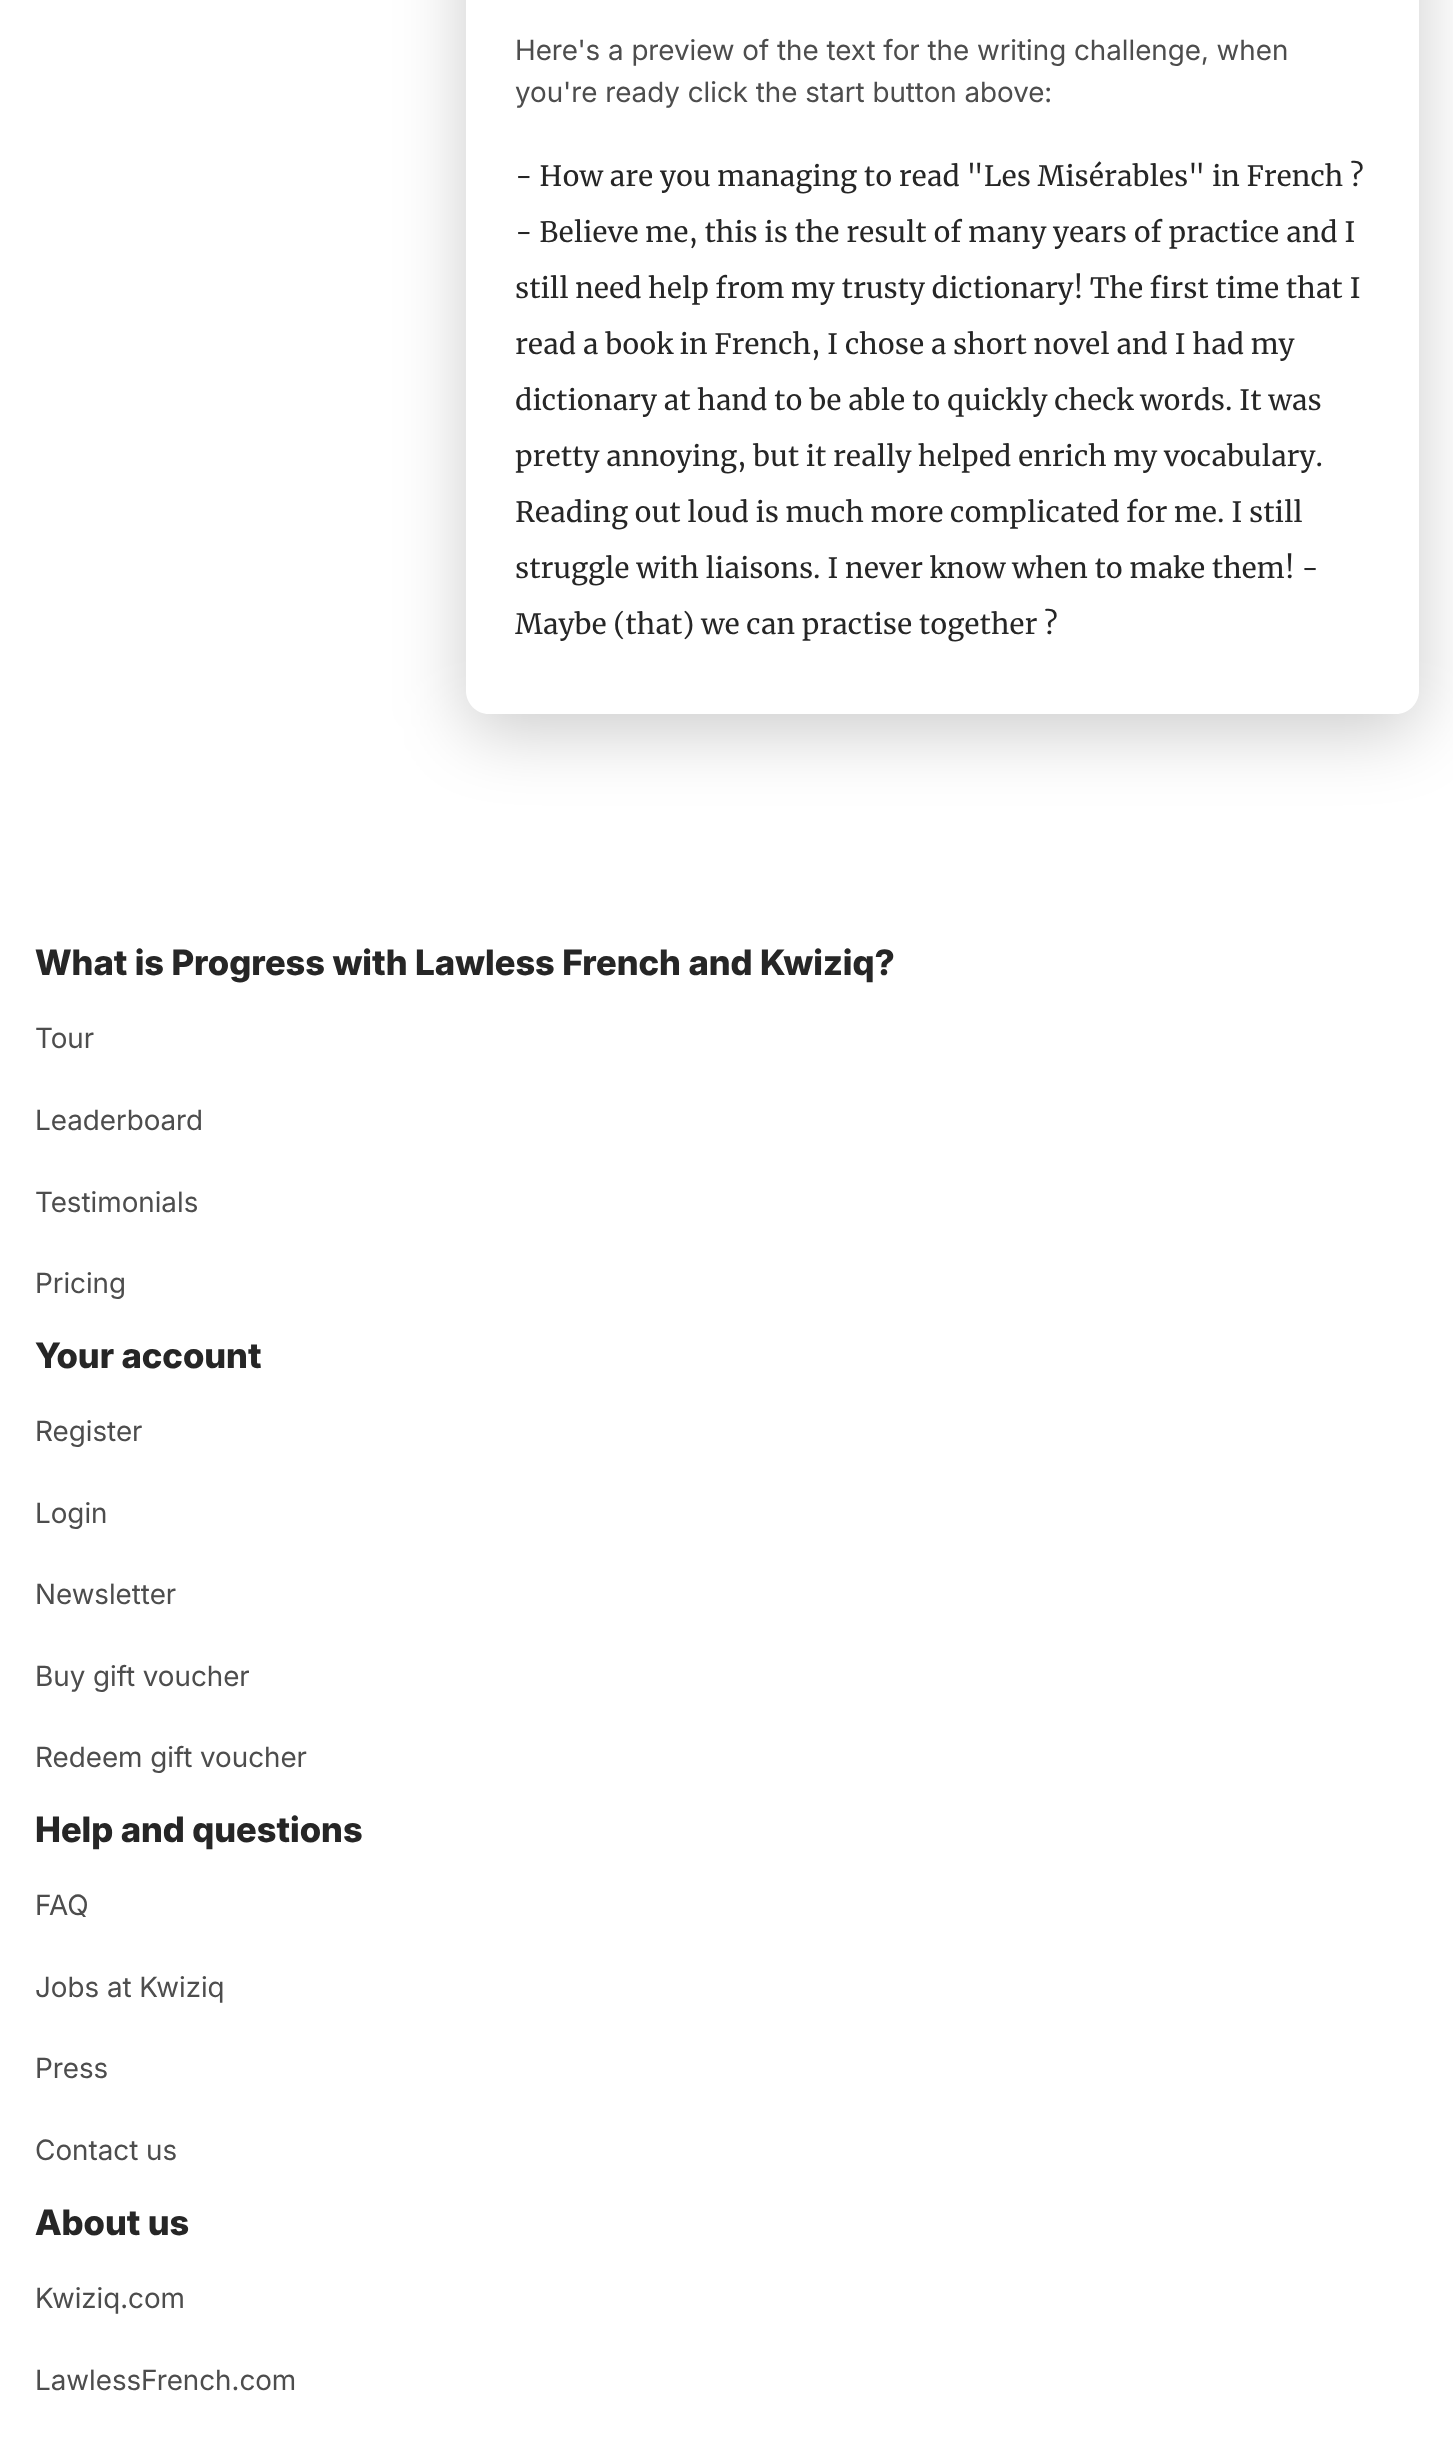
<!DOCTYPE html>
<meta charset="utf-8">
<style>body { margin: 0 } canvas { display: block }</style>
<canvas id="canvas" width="1453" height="2439"></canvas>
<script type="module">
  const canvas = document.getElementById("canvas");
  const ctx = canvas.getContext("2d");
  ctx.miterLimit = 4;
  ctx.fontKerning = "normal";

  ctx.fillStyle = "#ffffff";
  ctx.fillRect(0, 0, 1453, 2439);
  ctx.save();
  ctx.beginPath();
  ctx.moveTo(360, 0);
  ctx.lineTo(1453, 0);
  ctx.lineTo(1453, 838);
  ctx.lineTo(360, 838);
  ctx.closePath();
  ctx.moveTo(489, -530);
  ctx.lineTo(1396, -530);
  ctx.bezierCurveTo(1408.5, -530, 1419, -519.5, 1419, -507);
  ctx.lineTo(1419, 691);
  ctx.bezierCurveTo(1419, 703.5, 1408.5, 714, 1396, 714);
  ctx.lineTo(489, 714);
  ctx.bezierCurveTo(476.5, 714, 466, 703.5, 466, 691);
  ctx.lineTo(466, -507);
  ctx.bezierCurveTo(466, -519.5, 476.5, -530, 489, -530);
  ctx.closePath();
  ctx.clip("evenodd");
  ctx.fillStyle = "rgba(0, 0, 0, 0.2)";
  ctx.filter = "blur(35px)";
  ctx.beginPath();
  ctx.roundRect(466, -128, 953, 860, 23);
  ctx.fill();
  ctx.filter = "none";
  ctx.restore();
  ctx.font = "28px Inter";
  ctx.fillStyle = "#4d4d4d";
  ctx.fillText("Here's a preview of the text for the writing challenge, when", 515, 60);
  ctx.fillText("you're ready click the start button above:", 515, 102);
  ctx.font = "28px Merriweather";
  ctx.fillStyle = "#262626";
  ctx.fillText("- How are you managing to read \"Les Misérables\" in French ?", 515, 186);
  ctx.fillText("- Believe me, this is the result of many years of practice and I", 515, 242);
  ctx.fillText("still need help from my trusty dictionary! The first time that I", 515, 298);
  ctx.fillText("read a book in French, I chose a short novel and I had my", 515, 354);
  ctx.fillText("dictionary at hand to be able to quickly check words. It was", 515, 410);
  ctx.fillText("pretty annoying, but it really helped enrich my vocabulary.", 515, 466);
  ctx.fillText("Reading out loud is much more complicated for me. I still", 515, 522);
  ctx.fillText("struggle with liaisons. I never know when to make them! -", 515, 578);
  ctx.fillText("Maybe (that) we can practise together ?", 515, 634);
  ctx.font = "800 35px Inter";
  ctx.fillText("What is Progress with Lawless French and Kwiziq?", 35, 975);
  ctx.font = "28px Inter";
  ctx.fillStyle = "#4d4d4d";
  ctx.fillText("Tour", 35, 1048);
  ctx.fillText("Leaderboard", 35, 1130);
  ctx.fillText("Testimonials", 35, 1212);
  ctx.fillText("Pricing", 35, 1293);
  ctx.font = "800 35px Inter";
  ctx.fillStyle = "#262626";
  ctx.fillText("Your account", 35, 1368);
  ctx.font = "28px Inter";
  ctx.fillStyle = "#4d4d4d";
  ctx.fillText("Register", 35, 1441);
  ctx.fillText("Login", 35, 1523);
  ctx.fillText("Newsletter", 35, 1604);
  ctx.fillText("Buy gift voucher", 35, 1686);
  ctx.fillText("Redeem gift voucher", 35, 1767);
  ctx.font = "800 35px Inter";
  ctx.fillStyle = "#262626";
  ctx.fillText("Help and questions", 35, 1842);
  ctx.font = "28px Inter";
  ctx.fillStyle = "#4d4d4d";
  ctx.fillText("FAQ", 35, 1915);
  ctx.fillText("Jobs at Kwiziq", 35, 1997);
  ctx.fillText("Press", 35, 2078);
  ctx.fillText("Contact us", 35, 2160);
  ctx.font = "800 35px Inter";
  ctx.fillStyle = "#262626";
  ctx.fillText("About us", 35, 2235);
  ctx.font = "28px Inter";
  ctx.fillStyle = "#4d4d4d";
  ctx.fillText("Kwiziq.com", 35, 2308);
  ctx.fillText("LawlessFrench.com", 35, 2390);
</script>
